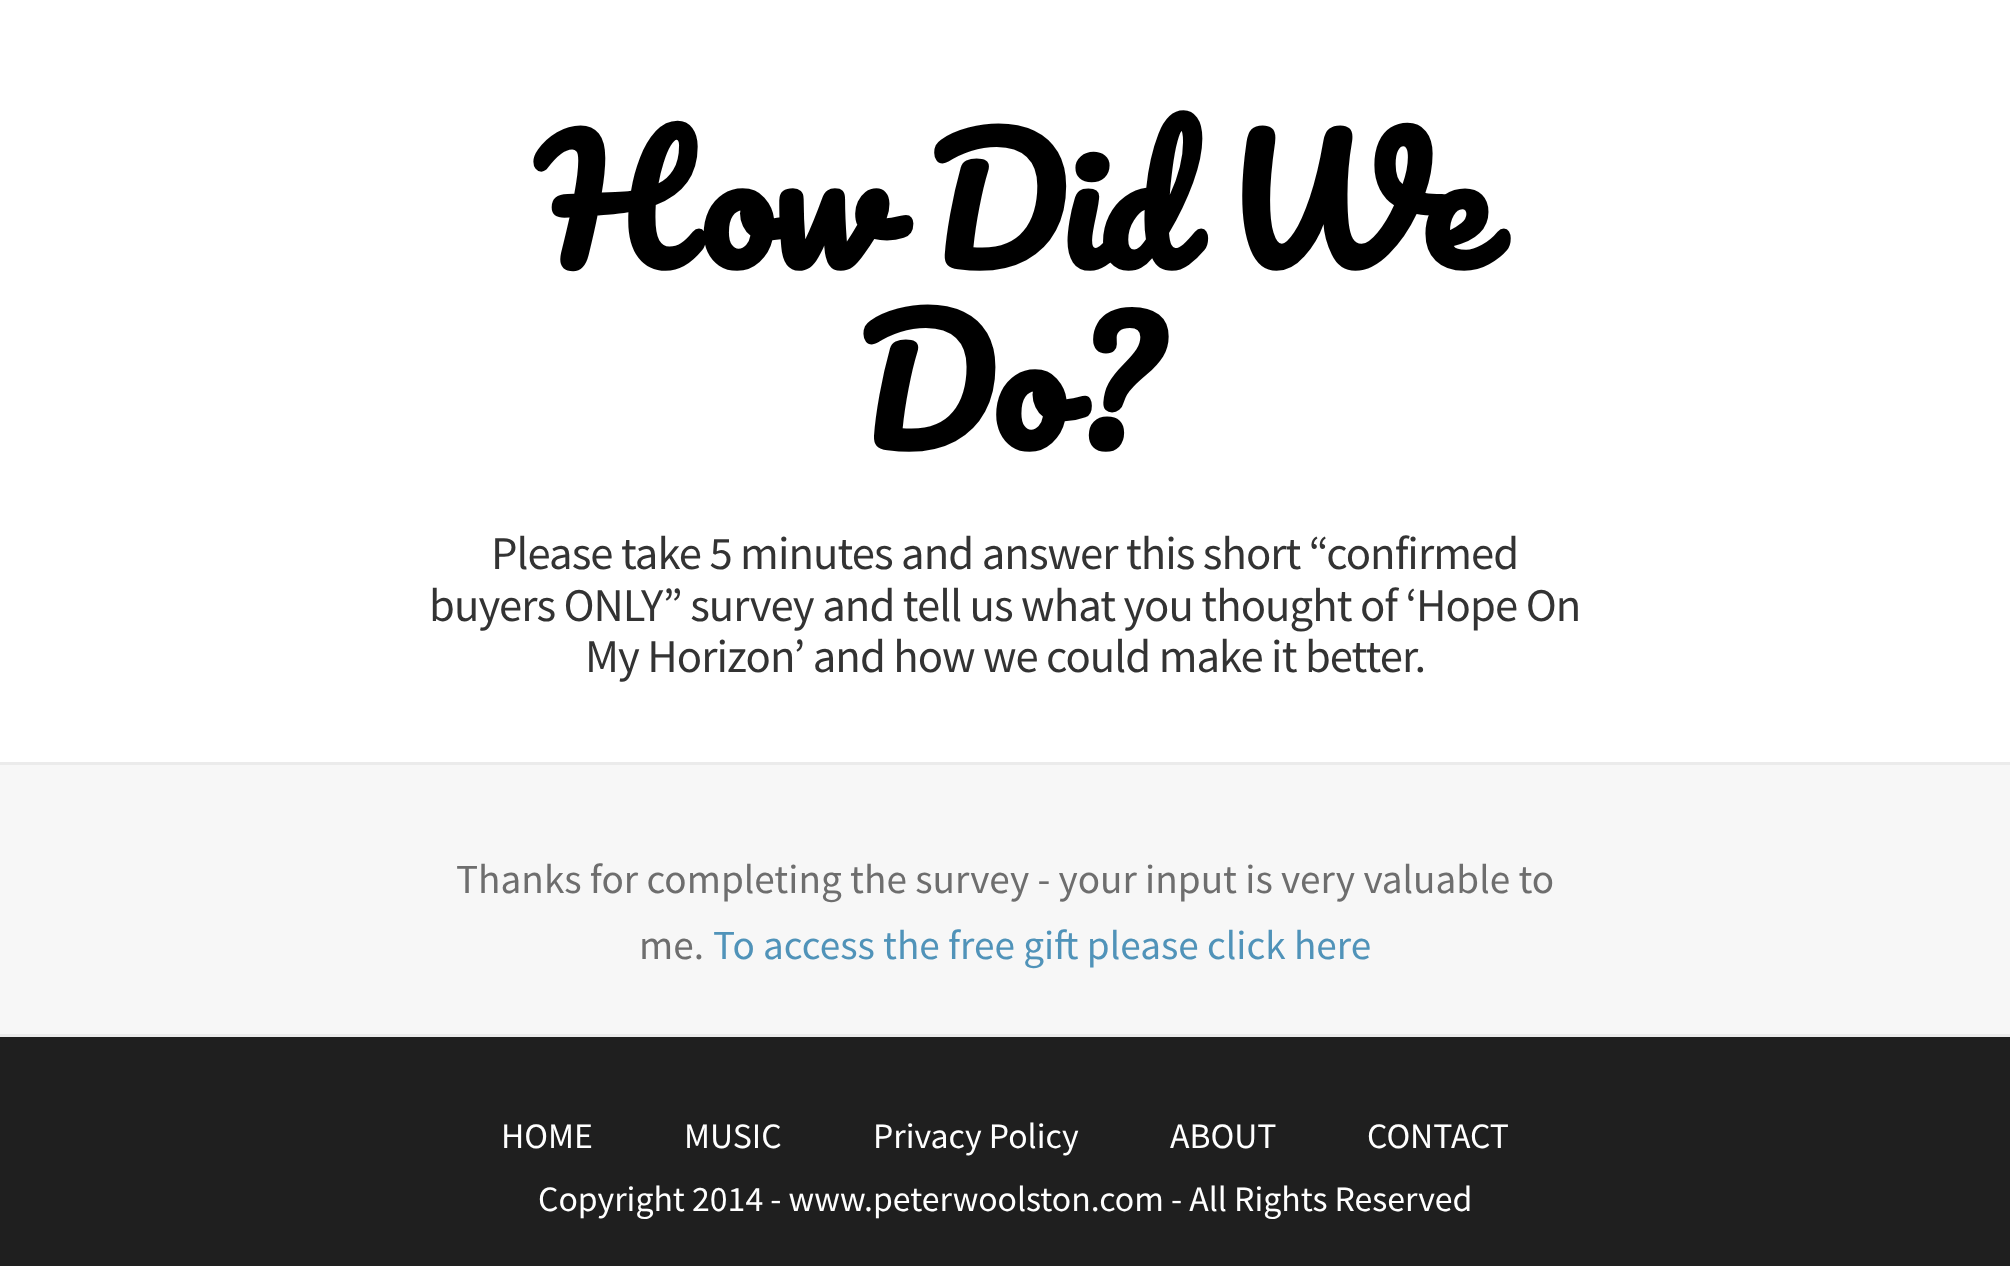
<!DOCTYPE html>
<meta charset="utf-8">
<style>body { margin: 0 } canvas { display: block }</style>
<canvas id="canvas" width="2010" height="1266"></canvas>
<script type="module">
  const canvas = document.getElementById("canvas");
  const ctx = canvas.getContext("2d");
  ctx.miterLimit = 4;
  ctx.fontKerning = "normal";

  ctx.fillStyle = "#ffffff";
  ctx.fillRect(0, 0, 2010, 1266);
  ctx.letterSpacing = "-3.25px";
  ctx.wordSpacing = "3px";
  ctx.font = "bold 165px Pacifico";
  ctx.fillStyle = "#000000";
  ctx.fillText("How Did We", 536, 270);
  ctx.wordSpacing = "0px";
  ctx.fillText("Do?", 856, 451);
  ctx.letterSpacing = "-0.95px";
  ctx.font = "46.75px Source Sans Pro";
  ctx.fillStyle = "#333333";
  ctx.fillText("Please take 5 minutes and answer this short “confirmed", 491, 569);
  ctx.fillText("buyers ONLY” survey and tell us what you thought of ‘Hope On", 429, 621);
  ctx.fillText("My Horizon’ and how we could make it better.", 585, 672);
  ctx.fillStyle = "#f7f7f7";
  ctx.fillRect(0, 765, 2010, 269);
  ctx.fillStyle = "#ebebeb";
  ctx.fillRect(0, 762, 2010, 3);
  ctx.fillRect(0, 1034, 2010, 3);
  ctx.letterSpacing = "0px";
  ctx.font = "41.25px Source Sans Pro";
  ctx.fillStyle = "#6e6e6e";
  ctx.fillText("Thanks for completing the survey - your input is very valuable to", 456, 893);
  ctx.fillText("me.", 639, 959);
  ctx.fillStyle = "#5093b9";
  ctx.fillText("To access the free gift please click here", 713, 959);
  ctx.fillStyle = "#1f1f1f";
  ctx.fillRect(0, 1037, 2010, 229);
  ctx.font = "35.75px Source Sans Pro";
  ctx.fillStyle = "#ffffff";
  ctx.fillText("HOME", 501, 1148);
  ctx.fillText("MUSIC", 684, 1148);
  ctx.fillText("Privacy Policy", 873, 1148);
  ctx.fillText("ABOUT", 1170, 1148);
  ctx.fillText("CONTACT", 1367, 1148);
  ctx.fillText("Copyright 2014 - www.peterwoolston.com - All Rights Reserved", 538, 1211);
</script>
